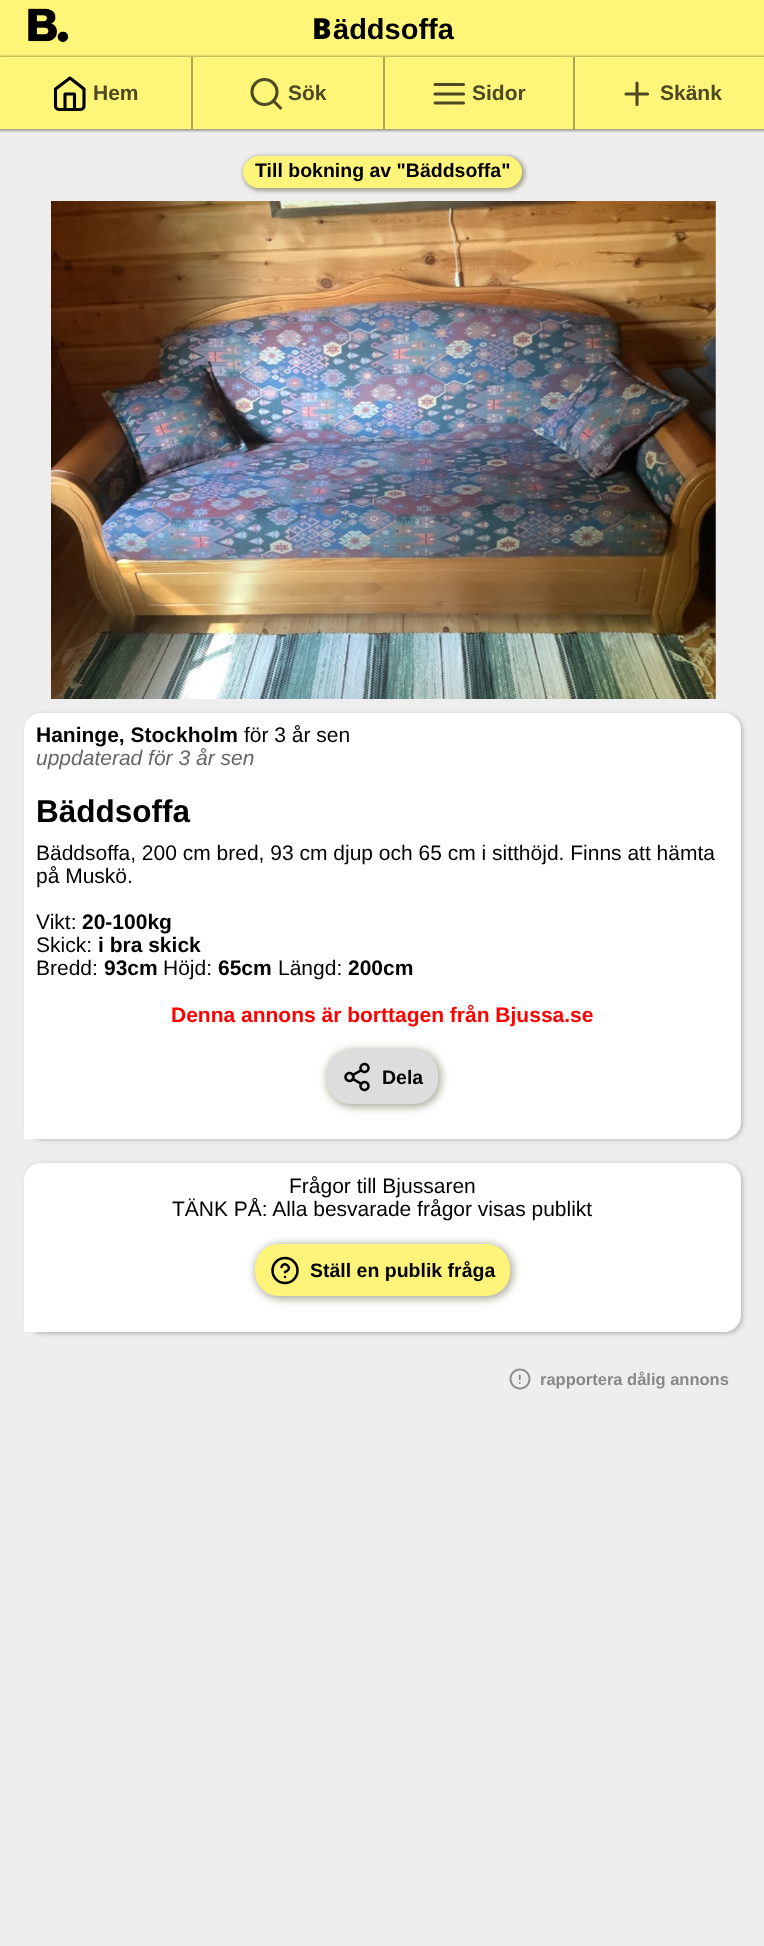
<!DOCTYPE html>
<meta charset="utf-8">
<style>body { margin: 0 } canvas { display: block }</style>
<canvas id="canvas" width="764" height="1946"></canvas>
<script type="module">
  const canvas = document.getElementById("canvas");
  const ctx = canvas.getContext("2d");
  ctx.miterLimit = 4;
  ctx.fontKerning = "normal";
  async function loadImage(src) {
    const img = new Image();
    img.src = src;
    await img.decode();
    return img;
  }

  ctx.fillStyle = "#eeeeee";
  ctx.fillRect(0, 0, 764, 1946);
  ctx.fillStyle = "#fef579";
  ctx.fillRect(0, 0, 764, 57);
  ctx.drawImage(await loadImage("img1.png"), 28, 8, 41, 35);
  ctx.font = "900 29px Noto Sans";
  ctx.fillStyle = "#000000";
  ctx.fillText("B", 312, 39);
  ctx.font = "bold 29px Liberation Sans";
  ctx.fillText("äddsoffa", 333, 39);
  ctx.fillStyle = "rgba(77, 73, 36, 0.47)";
  ctx.filter = "blur(1px)";
  ctx.beginPath();
  ctx.rect(-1, 56, 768, 75);
  ctx.fill();
  ctx.filter = "none";
  ctx.fillStyle = "#fef579";
  ctx.fillRect(0, 57, 764, 72);
  ctx.fillStyle = "#aba551";
  ctx.fillRect(191, 57, 2, 72);
  ctx.beginPath();
  ctx.moveTo(55.5, 89);
  ctx.lineTo(70, 78);
  ctx.lineTo(84, 89);
  ctx.lineTo(84, 106);
  ctx.bezierCurveTo(84, 108, 82.5, 109.5, 80.5, 109.5);
  ctx.lineTo(59, 109.5);
  ctx.bezierCurveTo(57, 109.5, 55.5, 108, 55.5, 106);
  ctx.closePath();
  ctx.moveTo(65, 109.5);
  ctx.lineTo(65, 94);
  ctx.lineTo(74.5, 94);
  ctx.lineTo(74.5, 109.5);
  ctx.strokeStyle = "#000000";
  ctx.lineWidth = 3.1;
  ctx.lineCap = "round";
  ctx.lineJoin = "round";
  ctx.stroke();
  ctx.font = "bold 21px Liberation Sans";
  ctx.fillStyle = "#4d4924";
  ctx.fillText("Hem", 93, 100);
  ctx.fillStyle = "#aba551";
  ctx.fillRect(383, 57, 2, 72);
  ctx.beginPath();
  ctx.arc(264.5, 92, 12.5, 0, Math.PI * 2);
  ctx.strokeStyle = "#4d4924";
  ctx.stroke();
  ctx.beginPath();
  ctx.moveTo(280.5, 108);
  ctx.lineTo(273.5, 101);
  ctx.stroke();
  ctx.fillStyle = "#4d4924";
  ctx.fillText("Sök", 288, 100);
  ctx.fillStyle = "#aba551";
  ctx.fillRect(573, 57, 2, 72);
  ctx.beginPath();
  ctx.moveTo(435, 94);
  ctx.lineTo(463.5, 94);
  ctx.moveTo(435, 84.5);
  ctx.lineTo(463.5, 84.5);
  ctx.moveTo(435, 103);
  ctx.lineTo(463.5, 103);
  ctx.stroke();
  ctx.fillStyle = "#4d4924";
  ctx.fillText("Sidor", 472, 100);
  ctx.beginPath();
  ctx.moveTo(637, 83);
  ctx.lineTo(637, 104.5);
  ctx.moveTo(626, 94);
  ctx.lineTo(647.5, 94);
  ctx.stroke();
  ctx.fillText("Skänk", 660, 100);
  ctx.fillStyle = "rgba(77, 73, 36, 0.47)";
  ctx.filter = "blur(2px)";
  ctx.beginPath();
  ctx.roundRect(243, 156, 282, 35, 17.5);
  ctx.fill();
  ctx.filter = "none";
  ctx.fillStyle = "#fef479";
  ctx.beginPath();
  ctx.roundRect(243, 156, 279, 32, 16);
  ctx.fill();
  ctx.font = "bold 19.5px Liberation Sans";
  ctx.fillStyle = "#000000";
  ctx.fillText("Till bokning av \"Bäddsoffa\"", 255, 177);
  ctx.drawImage(await loadImage("img2.png"), 51, 201, 665, 498);
  ctx.fillStyle = "#bbbbbb";
  ctx.filter = "blur(2px)";
  ctx.beginPath();
  ctx.roundRect(26, 714, 717, 426, 17);
  ctx.fill();
  ctx.filter = "none";
  ctx.fillStyle = "#ffffff";
  ctx.beginPath();
  ctx.roundRect(24, 713, 717, 426, [17, 17, 17, 0]);
  ctx.fill();
  ctx.font = "bold 21px Liberation Sans";
  ctx.fillStyle = "#000000";
  ctx.fillText("Haninge, Stockholm", 36, 742);
  ctx.font = "21px Liberation Sans";
  ctx.fillText("för 3 år sen", 244, 742);
  ctx.font = "italic 21px Liberation Sans";
  ctx.fillStyle = "#666666";
  ctx.fillText("uppdaterad för 3 år sen", 36, 765);
  ctx.font = "bold 31.5px Liberation Sans";
  ctx.fillStyle = "#000000";
  ctx.fillText("Bäddsoffa", 36, 822);
  ctx.font = "21px Liberation Sans";
  ctx.fillText("Bäddsoffa, 200 cm bred, 93 cm djup och 65 cm i sitthöjd. Finns att hämta", 36, 860);
  ctx.fillText("på Muskö.", 36, 883);
  ctx.fillText("Vikt:", 36, 929);
  ctx.font = "bold 21px Liberation Sans";
  ctx.fillText("20-100kg", 82, 929);
  ctx.font = "21px Liberation Sans";
  ctx.fillText("Skick:", 36, 952);
  ctx.font = "bold 21px Liberation Sans";
  ctx.fillText("i bra skick", 98, 952);
  ctx.font = "21px Liberation Sans";
  ctx.fillText("Bredd:", 36, 975);
  ctx.font = "bold 21px Liberation Sans";
  ctx.fillText("93cm", 104, 975);
  ctx.font = "21px Liberation Sans";
  ctx.fillText("Höjd:", 163, 975);
  ctx.font = "bold 21px Liberation Sans";
  ctx.fillText("65cm", 218, 975);
  ctx.font = "21px Liberation Sans";
  ctx.fillText("Längd:", 278, 975);
  ctx.font = "bold 21px Liberation Sans";
  ctx.fillText("200cm", 348, 975);
  ctx.fillStyle = "#ff0000";
  ctx.fillText("Denna annons är borttagen från Bjussa.se", 171, 1022);
  ctx.fillStyle = "rgba(77, 73, 36, 0.47)";
  ctx.filter = "blur(4px)";
  ctx.beginPath();
  ctx.roundRect(327, 1050, 114, 57, 26);
  ctx.fill();
  ctx.filter = "none";
  ctx.fillStyle = "#dddddd";
  ctx.beginPath();
  ctx.roundRect(327, 1050, 111, 54, 24);
  ctx.fill();
  ctx.drawImage(await loadImage("img3.png"), 344, 1062, 26, 30);
  ctx.font = "bold 19.5px Liberation Sans";
  ctx.fillStyle = "#000000";
  ctx.fillText("Dela", 382, 1084);
  ctx.fillStyle = "#bbbbbb";
  ctx.filter = "blur(2px)";
  ctx.beginPath();
  ctx.roundRect(26, 1164, 717, 170, 17);
  ctx.fill();
  ctx.filter = "none";
  ctx.fillStyle = "#ffffff";
  ctx.beginPath();
  ctx.roundRect(24, 1163, 717, 169, [17, 17, 17, 0]);
  ctx.fill();
  ctx.font = "21px Liberation Sans";
  ctx.fillStyle = "#000000";
  ctx.fillText("Frågor till Bjussaren", 289, 1193);
  ctx.fillText("TÄNK PÅ: Alla besvarade frågor visas publikt", 172, 1216);
  ctx.fillStyle = "rgba(77, 73, 36, 0.47)";
  ctx.filter = "blur(4px)";
  ctx.beginPath();
  ctx.roundRect(255, 1244, 258, 55, 26);
  ctx.fill();
  ctx.filter = "none";
  ctx.fillStyle = "#fef479";
  ctx.beginPath();
  ctx.roundRect(255, 1244, 255, 52, 24);
  ctx.fill();
  ctx.beginPath();
  ctx.arc(285, 1270.5, 12.5, 0, Math.PI * 2);
  ctx.strokeStyle = "#000000";
  ctx.lineWidth = 2.5;
  ctx.stroke();
  ctx.beginPath();
  ctx.moveTo(281.5, 1267);
  ctx.bezierCurveTo(284, 1260, 294.5, 1268.5, 285, 1272);
  ctx.moveTo(285, 1277);
  ctx.lineTo(285, 1277);
  ctx.stroke();
  ctx.font = "bold 19.5px Liberation Sans";
  ctx.fillStyle = "#000000";
  ctx.fillText("Ställ en publik fråga", 310, 1277);
  ctx.drawImage(await loadImage("img4.png"), 509, 1368, 22, 22);
  ctx.font = "bold 16.5px Liberation Sans";
  ctx.fillStyle = "#888888";
  ctx.fillText("rapportera dålig annons", 540, 1385);
</script>
